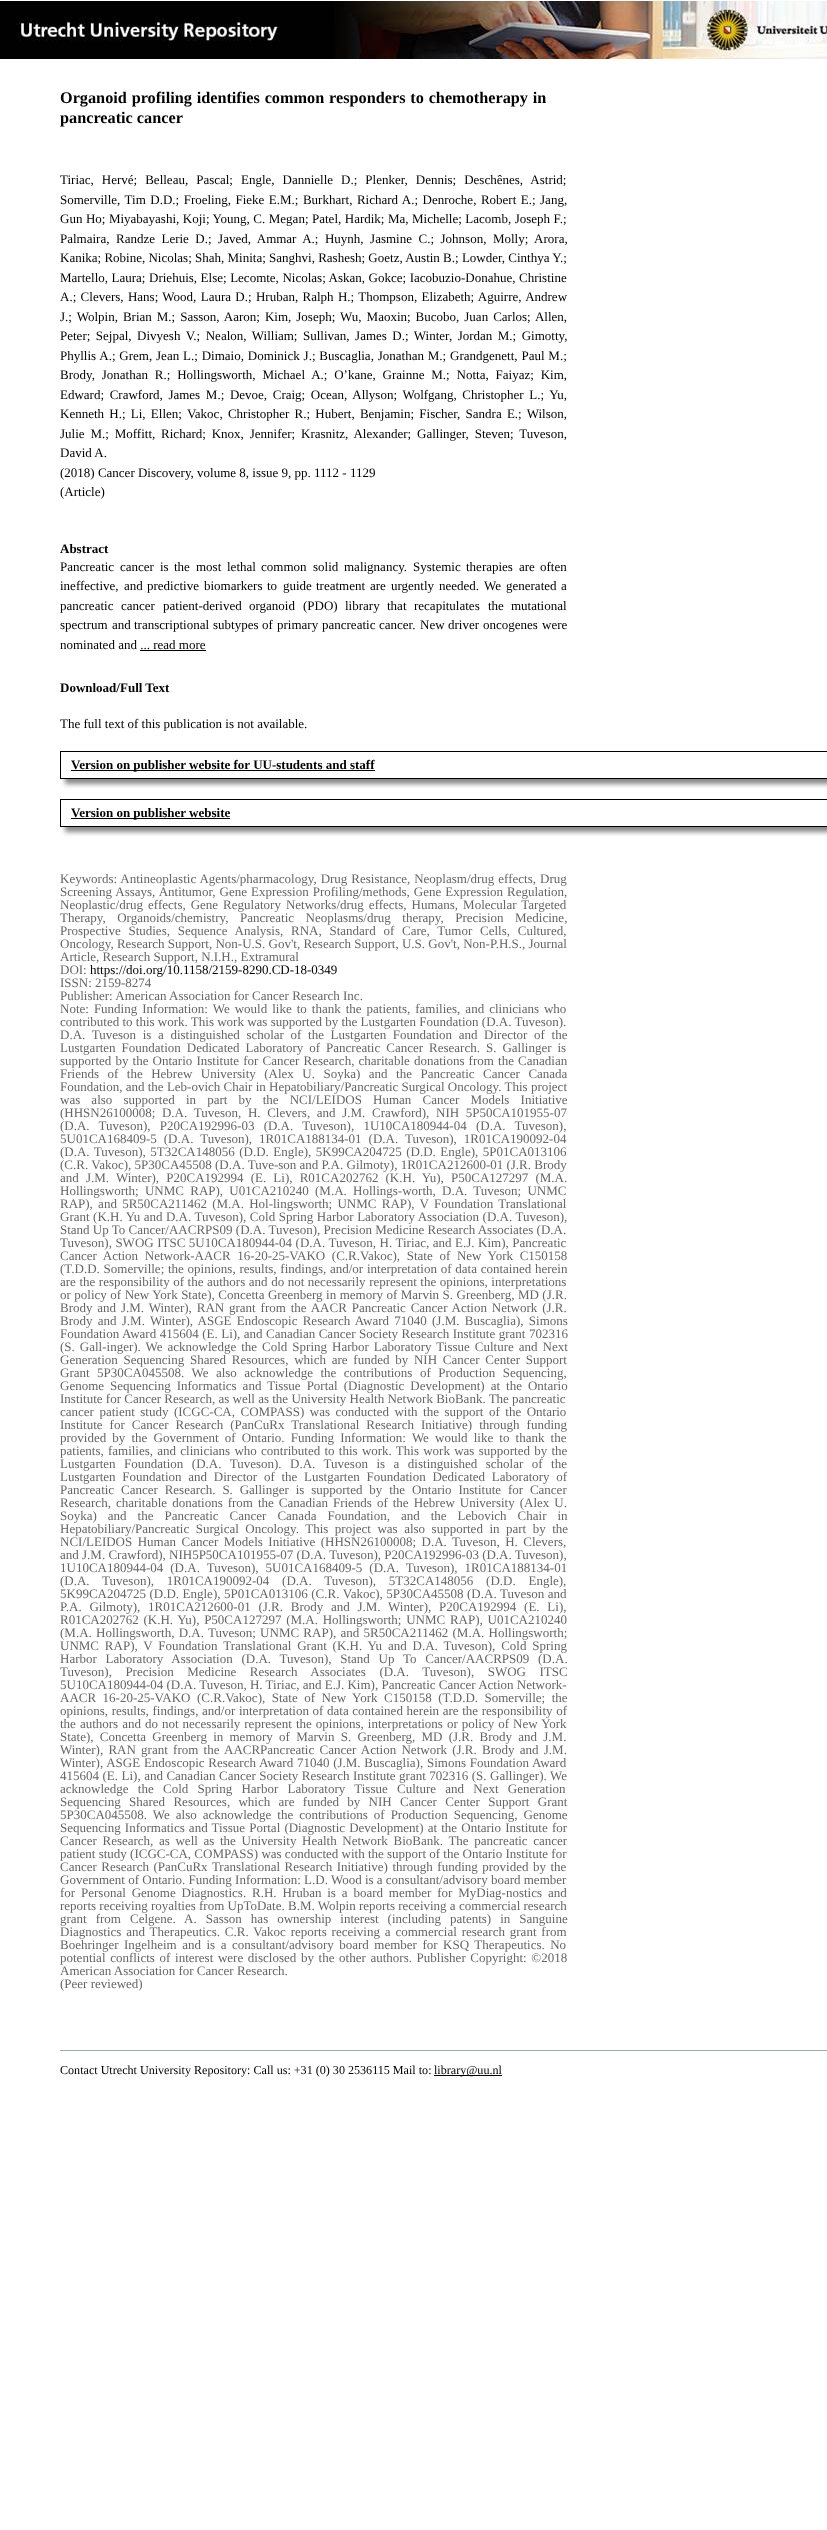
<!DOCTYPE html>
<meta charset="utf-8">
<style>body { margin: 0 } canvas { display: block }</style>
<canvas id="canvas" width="827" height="2530"></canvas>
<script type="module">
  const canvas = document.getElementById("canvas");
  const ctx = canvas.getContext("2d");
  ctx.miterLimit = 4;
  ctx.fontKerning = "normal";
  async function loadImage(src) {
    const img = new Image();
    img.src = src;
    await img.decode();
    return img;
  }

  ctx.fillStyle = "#ffffff";
  ctx.fillRect(0, 0, 827, 2530);
  ctx.drawImage(await loadImage("img1.png"), 0, 1, 827, 58);
  ctx.wordSpacing = "0.75px";
  ctx.font = "bold 16.25px Liberation Serif";
  ctx.fillStyle = "#000000";
  ctx.fillText("Organoid profiling identifies common responders to chemotherapy in", 60, 103);
  ctx.wordSpacing = "0px";
  ctx.fillText("pancreatic cancer", 60, 123);
  ctx.wordSpacing = "4.75px";
  ctx.font = "13px Liberation Serif";
  ctx.fillText("Tiriac, Hervé; Belleau, Pascal; Engle, Dannielle D.; Plenker, Dennis; Deschênes, Astrid;", 60, 184);
  ctx.wordSpacing = "1.25px";
  ctx.fillText("Somerville, Tim D.D.; Froeling, Fieke E.M.; Burkhart, Richard A.; Denroche, Robert E.; Jang,", 60, 204);
  ctx.wordSpacing = "0.25px";
  ctx.fillText("Gun Ho; Miyabayashi, Koji; Young, C. Megan; Patel, Hardik; Ma, Michelle; Lacomb, Joseph F.;", 60, 223);
  ctx.wordSpacing = "3.25px";
  ctx.fillText("Palmaira, Randze Lerie D.; Javed, Ammar A.; Huynh, Jasmine C.; Johnson, Molly; Arora,", 60, 243);
  ctx.wordSpacing = "0px";
  ctx.fillText("Kanika; Robine, Nicolas; Shah, Minita; Sanghvi, Rashesh; Goetz, Austin B.; Lowder, Cinthya Y.;", 60, 262);
  ctx.wordSpacing = "0.3px";
  ctx.fillText("Martello, Laura; Driehuis, Else; Lecomte, Nicolas; Askan, Gokce; Iacobuzio-Donahue, Christine", 60, 282);
  ctx.wordSpacing = "1.1px";
  ctx.fillText("A.; Clevers, Hans; Wood, Laura D.; Hruban, Ralph H.; Thompson, Elizabeth; Aguirre, Andrew", 60, 301);
  ctx.wordSpacing = "1.75px";
  ctx.fillText("J.; Wolpin, Brian M.; Sasson, Aaron; Kim, Joseph; Wu, Maoxin; Bucobo, Juan Carlos; Allen,", 60, 321);
  ctx.wordSpacing = "2.25px";
  ctx.fillText("Peter; Sejpal, Divyesh V.; Nealon, William; Sullivan, James D.; Winter, Jordan M.; Gimotty,", 60, 340);
  ctx.wordSpacing = "0.6px";
  ctx.fillText("Phyllis A.; Grem, Jean L.; Dimaio, Dominick J.; Buscaglia, Jonathan M.; Grandgenett, Paul M.;", 60, 360);
  ctx.wordSpacing = "3.6px";
  ctx.fillText("Brody, Jonathan R.; Hollingsworth, Michael A.; O’kane, Grainne M.; Notta, Faiyaz; Kim,", 60, 379);
  ctx.wordSpacing = "2.4px";
  ctx.fillText("Edward; Crawford, James M.; Devoe, Craig; Ocean, Allyson; Wolfgang, Christopher L.; Yu,", 60, 399);
  ctx.wordSpacing = "2px";
  ctx.fillText("Kenneth H.; Li, Ellen; Vakoc, Christopher R.; Hubert, Benjamin; Fischer, Sandra E.; Wilson,", 60, 418);
  ctx.wordSpacing = "2.6px";
  ctx.fillText("Julie M.; Moffitt, Richard; Knox, Jennifer; Krasnitz, Alexander; Gallinger, Steven; Tuveson,", 60, 438);
  ctx.wordSpacing = "0px";
  ctx.fillText("David A.", 60, 457);
  ctx.fillText("(2018) Cancer Discovery, volume 8, issue 9, pp. 1112 - 1129", 60, 477);
  ctx.fillText("(Article)", 60, 496);
  ctx.font = "bold 13px Liberation Serif";
  ctx.fillText("Abstract", 60, 553);
  ctx.font = "13px Liberation Serif";
  ctx.fillText("Pancreatic", 60, 571);
  ctx.fillText("cancer", 120, 571);
  ctx.fillText("is", 160, 571);
  ctx.fillText("the", 174, 571);
  ctx.fillText("most", 196, 571);
  ctx.fillText("lethal", 227, 571);
  ctx.fillText("common", 261, 571);
  ctx.fillText("solid", 313, 571);
  ctx.fillText("malignancy.", 344, 571);
  ctx.fillText("Systemic", 413, 571);
  ctx.fillText("therapies", 466, 571);
  ctx.fillText("are", 519, 571);
  ctx.fillText("often", 540, 571);
  ctx.fillText("ineffective,", 60, 590);
  ctx.fillText("and", 124, 590);
  ctx.fillText("predictive", 147, 590);
  ctx.fillText("biomarkers", 204, 590);
  ctx.fillText("to", 267, 590);
  ctx.fillText("guide", 283, 590);
  ctx.fillText("treatment", 316, 590);
  ctx.fillText("are", 370, 590);
  ctx.fillText("urgently", 391, 590);
  ctx.fillText("needed.", 439, 590);
  ctx.fillText("We", 484, 590);
  ctx.fillText("generated", 506, 590);
  ctx.fillText("a", 561, 590);
  ctx.fillText("pancreatic", 60, 610);
  ctx.fillText("cancer", 121, 610);
  ctx.fillText("patient-derived", 163, 610);
  ctx.fillText("organoid", 249, 610);
  ctx.fillText("(PDO)", 303, 610);
  ctx.fillText("library", 345, 610);
  ctx.fillText("that", 387, 610);
  ctx.fillText("recapitulates", 414, 610);
  ctx.fillText("the", 488, 610);
  ctx.fillText("mutational", 511, 610);
  ctx.fillText("spectrum", 60, 629);
  ctx.fillText("and", 112, 629);
  ctx.fillText("transcriptional", 134, 629);
  ctx.fillText("subtypes", 213, 629);
  ctx.fillText("of", 262, 629);
  ctx.fillText("primary", 277, 629);
  ctx.fillText("pancreatic", 322, 629);
  ctx.fillText("cancer.", 379, 629);
  ctx.fillText("New", 420, 629);
  ctx.fillText("driver", 448, 629);
  ctx.fillText("oncogenes", 483, 629);
  ctx.fillText("were", 542, 629);
  ctx.fillText("nominated and ... read more", 60, 649);
  ctx.fillRect(140, 650, 66, 1);
  ctx.font = "bold 13px Liberation Serif";
  ctx.fillText("Download/Full Text", 60, 692);
  ctx.font = "13px Liberation Serif";
  ctx.fillText("The full text of this publication is not available.", 60, 728);
  ctx.save();
  ctx.beginPath();
  ctx.rect(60, 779, 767, 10);
  ctx.clip();
  ctx.fillStyle = "#888888";
  ctx.filter = "blur(2.5px)";
  ctx.beginPath();
  ctx.rect(65, 756, 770, 28);
  ctx.fill();
  ctx.filter = "none";
  ctx.restore();
  ctx.strokeStyle = "#000000";
  ctx.strokeRect(60.5, 751.5, 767, 27);
  ctx.fillRect(71, 770, 304, 1);
  ctx.font = "bold 13px Liberation Serif";
  ctx.fillText("Version on publisher website for UU-students and staff", 71, 769);
  ctx.save();
  ctx.beginPath();
  ctx.rect(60, 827, 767, 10);
  ctx.clip();
  ctx.fillStyle = "#888888";
  ctx.filter = "blur(2.5px)";
  ctx.beginPath();
  ctx.rect(65, 804, 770, 28);
  ctx.fill();
  ctx.filter = "none";
  ctx.restore();
  ctx.strokeRect(60.5, 799.5, 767, 27);
  ctx.fillRect(71, 818, 159, 1);
  ctx.fillText("Version on publisher website", 71, 817);
  ctx.wordSpacing = "0.75px";
  ctx.font = "13px Liberation Serif";
  ctx.fillStyle = "#666666";
  ctx.fillText("Keywords: Antineoplastic Agents/pharmacology, Drug Resistance, Neoplasm/drug effects, Drug", 60, 883);
  ctx.fillText("Screening Assays, Antitumor, Gene Expression Profiling/methods, Gene Expression Regulation,", 60, 896);
  ctx.wordSpacing = "1.75px";
  ctx.fillText("Neoplastic/drug effects, Gene Regulatory Networks/drug effects, Humans, Molecular Targeted", 60, 909);
  ctx.wordSpacing = "8.25px";
  ctx.fillText("Therapy, Organoids/chemistry, Pancreatic Neoplasms/drug therapy, Precision Medicine,", 60, 922);
  ctx.wordSpacing = "4.5px";
  ctx.fillText("Prospective Studies, Sequence Analysis, RNA, Standard of Care, Tumor Cells, Cultured,", 60, 935);
  ctx.wordSpacing = "0px";
  ctx.fillText("Oncology, Research Support, Non-U.S. Gov't, Research Support, U.S. Gov't, Non-P.H.S., Journal", 60, 948);
  ctx.fillText("Article, Research Support, N.I.H., Extramural", 60, 961);
  ctx.fillText("DOI:", 60, 974);
  ctx.fillStyle = "#000000";
  ctx.fillText("https://doi.org/10.1158/2159-8290.CD-18-0349", 90, 974);
  ctx.fillStyle = "#666666";
  ctx.fillText("ISSN: 2159-8274", 60, 987);
  ctx.fillText("Publisher: American Association for Cancer Research Inc.", 60, 1000);
  ctx.wordSpacing = "1.75px";
  ctx.fillText("Note: Funding Information: We would like to thank the patients, families, and clinicians who", 60, 1013);
  ctx.wordSpacing = "0px";
  ctx.fillText("contributed to this work. This work was supported by the Lustgarten Foundation (D.A. Tuveson).", 60, 1026);
  ctx.wordSpacing = "3.4px";
  ctx.fillText("D.A. Tuveson is a distinguished scholar of the Lustgarten Foundation and Director of the", 60, 1039);
  ctx.wordSpacing = "2.75px";
  ctx.fillText("Lustgarten Foundation Dedicated Laboratory of Pancreatic Cancer Research. S. Gallinger is", 60, 1052);
  ctx.wordSpacing = "0.9px";
  ctx.fillText("supported by the Ontario Institute for Cancer Research, charitable donations from the Canadian", 60, 1065);
  ctx.wordSpacing = "5.25px";
  ctx.fillText("Friends of the Hebrew University (Alex U. Soyka) and the Pancreatic Cancer Canada", 60, 1078);
  ctx.wordSpacing = "0px";
  ctx.fillText("Foundation, and the Leb-ovich Chair in Hepatobiliary/Pancreatic Surgical Oncology. This project", 60, 1091);
  ctx.wordSpacing = "7.9px";
  ctx.fillText("was also supported in part by the NCI/LEIDOS Human Cancer Models Initiative", 60, 1104);
  ctx.wordSpacing = "3.4px";
  ctx.fillText("(HHSN26100008; D.A. Tuveson, H. Clevers, and J.M. Crawford), NIH 5P50CA101955-07", 60, 1117);
  ctx.wordSpacing = "6px";
  ctx.fillText("(D.A. Tuveson), P20CA192996-03 (D.A. Tuveson), 1U10CA180944-04 (D.A. Tuveson),", 60, 1130);
  ctx.wordSpacing = "3.75px";
  ctx.fillText("5U01CA168409-5 (D.A. Tuveson), 1R01CA188134-01 (D.A. Tuveson), 1R01CA190092-04", 60, 1143);
  ctx.wordSpacing = "1.25px";
  ctx.fillText("(D.A. Tuveson), 5T32CA148056 (D.D. Engle), 5K99CA204725 (D.D. Engle), 5P01CA013106", 60, 1156);
  ctx.wordSpacing = "0px";
  ctx.fillText("(C.R. Vakoc), 5P30CA45508 (D.A. Tuve-son and P.A. Gilmoty), 1R01CA212600-01 (J.R. Brody", 60, 1169);
  ctx.wordSpacing = "3.9px";
  ctx.fillText("and J.M. Winter), P20CA192994 (E. Li), R01CA202762 (K.H. Yu), P50CA127297 (M.A.", 60, 1182);
  ctx.wordSpacing = "3px";
  ctx.fillText("Hollingsworth; UNMC RAP), U01CA210240 (M.A. Hollings-worth, D.A. Tuveson; UNMC", 60, 1195);
  ctx.wordSpacing = "2px";
  ctx.fillText("RAP), and 5R50CA211462 (M.A. Hol-lingsworth; UNMC RAP), V Foundation Translational", 60, 1208);
  ctx.wordSpacing = "0.25px";
  ctx.fillText("Grant (K.H. Yu and D.A. Tuveson), Cold Spring Harbor Laboratory Association (D.A. Tuveson),", 60, 1221);
  ctx.wordSpacing = "0px";
  ctx.fillText("Stand Up To Cancer/AACRPS09 (D.A. Tuveson), Precision Medicine Research Associates (D.A.", 60, 1234);
  ctx.wordSpacing = "0.25px";
  ctx.fillText("Tuveson), SWOG ITSC 5U10CA180944-04 (D.A. Tuveson, H. Tiriac, and E.J. Kim), Pancreatic", 60, 1247);
  ctx.wordSpacing = "3.4px";
  ctx.fillText("Cancer Action Network-AACR 16-20-25-VAKO (C.R.Vakoc), State of New York C150158", 60, 1260);
  ctx.wordSpacing = "0.5px";
  ctx.fillText("(T.D.D. Somerville; the opinions, results, findings, and/or interpretation of data contained herein", 60, 1273);
  ctx.wordSpacing = "0.3px";
  ctx.fillText("are the responsibility of the authors and do not necessarily represent the opinions, interpretations", 60, 1286);
  ctx.wordSpacing = "0.25px";
  ctx.fillText("or policy of New York State), Concetta Greenberg in memory of Marvin S. Greenberg, MD (J.R.", 60, 1299);
  ctx.wordSpacing = "1.6px";
  ctx.fillText("Brody and J.M. Winter), RAN grant from the AACR Pancreatic Cancer Action Network (J.R.", 60, 1312);
  ctx.wordSpacing = "2px";
  ctx.fillText("Brody and J.M. Winter), ASGE Endoscopic Research Award 71040 (J.M. Buscaglia), Simons", 60, 1325);
  ctx.wordSpacing = "0.25px";
  ctx.fillText("Foundation Award 415604 (E. Li), and Canadian Cancer Society Research Institute grant 702316", 60, 1338);
  ctx.wordSpacing = "1.75px";
  ctx.fillText("(S. Gall-inger). We acknowledge the Cold Spring Harbor Laboratory Tissue Culture and Next", 60, 1351);
  ctx.wordSpacing = "2.5px";
  ctx.fillText("Generation Sequencing Shared Resources, which are funded by NIH Cancer Center Support", 60, 1364);
  ctx.wordSpacing = "4.25px";
  ctx.fillText("Grant 5P30CA045508. We also acknowledge the contributions of Production Sequencing,", 60, 1377);
  ctx.wordSpacing = "2.75px";
  ctx.fillText("Genome Sequencing Informatics and Tissue Portal (Diagnostic Development) at the Ontario", 60, 1390);
  ctx.wordSpacing = "0px";
  ctx.fillText("Institute for Cancer Research, as well as the University Health Network BioBank. The pancreatic", 60, 1403);
  ctx.wordSpacing = "2.25px";
  ctx.fillText("cancer patient study (ICGC-CA, COMPASS) was conducted with the support of the Ontario", 60, 1416);
  ctx.wordSpacing = "3.75px";
  ctx.fillText("Institute for Cancer Research (PanCuRx Translational Research Initiative) through funding", 60, 1429);
  ctx.wordSpacing = "2.9px";
  ctx.fillText("provided by the Government of Ontario. Funding Information: We would like to thank the", 60, 1442);
  ctx.wordSpacing = "1px";
  ctx.fillText("patients, families, and clinicians who contributed to this work. This work was supported by the", 60, 1455);
  ctx.wordSpacing = "5.25px";
  ctx.fillText("Lustgarten Foundation (D.A. Tuveson). D.A. Tuveson is a distinguished scholar of the", 60, 1468);
  ctx.wordSpacing = "3.5px";
  ctx.fillText("Lustgarten Foundation and Director of the Lustgarten Foundation Dedicated Laboratory of", 60, 1481);
  ctx.wordSpacing = "3.6px";
  ctx.fillText("Pancreatic Cancer Research. S. Gallinger is supported by the Ontario Institute for Cancer", 60, 1494);
  ctx.wordSpacing = "1.75px";
  ctx.fillText("Research, charitable donations from the Canadian Friends of the Hebrew University (Alex U.", 60, 1507);
  ctx.wordSpacing = "7.75px";
  ctx.fillText("Soyka) and the Pancreatic Cancer Canada Foundation, and the Lebovich Chair in", 60, 1520);
  ctx.wordSpacing = "3.25px";
  ctx.fillText("Hepatobiliary/Pancreatic Surgical Oncology. This project was also supported in part by the", 60, 1533);
  ctx.wordSpacing = "2.25px";
  ctx.fillText("NCI/LEIDOS Human Cancer Models Initiative (HHSN26100008; D.A. Tuveson, H. Clevers,", 60, 1546);
  ctx.wordSpacing = "0px";
  ctx.fillText("and J.M. Crawford), NIH5P50CA101955-07 (D.A. Tuveson), P20CA192996-03 (D.A. Tuveson),", 60, 1559);
  ctx.wordSpacing = "3.75px";
  ctx.fillText("1U10CA180944-04 (D.A. Tuveson), 5U01CA168409-5 (D.A. Tuveson), 1R01CA188134-01", 60, 1572);
  ctx.wordSpacing = "9.5px";
  ctx.fillText("(D.A. Tuveson), 1R01CA190092-04 (D.A. Tuveson), 5T32CA148056 (D.D. Engle),", 60, 1585);
  ctx.wordSpacing = "0.25px";
  ctx.fillText("5K99CA204725 (D.D. Engle), 5P01CA013106 (C.R. Vakoc), 5P30CA45508 (D.A. Tuveson and", 60, 1598);
  ctx.wordSpacing = "4.5px";
  ctx.fillText("P.A. Gilmoty), 1R01CA212600-01 (J.R. Brody and J.M. Winter), P20CA192994 (E. Li),", 60, 1611);
  ctx.wordSpacing = "1.5px";
  ctx.fillText("R01CA202762 (K.H. Yu), P50CA127297 (M.A. Hollingsworth; UNMC RAP), U01CA210240", 60, 1624);
  ctx.wordSpacing = "1px";
  ctx.fillText("(M.A. Hollingsworth, D.A. Tuveson; UNMC RAP), and 5R50CA211462 (M.A. Hollingsworth;", 60, 1637);
  ctx.wordSpacing = "2.6px";
  ctx.fillText("UNMC RAP), V Foundation Translational Grant (K.H. Yu and D.A. Tuveson), Cold Spring", 60, 1650);
  ctx.wordSpacing = "5.5px";
  ctx.fillText("Harbor Laboratory Association (D.A. Tuveson), Stand Up To Cancer/AACRPS09 (D.A.", 60, 1663);
  ctx.wordSpacing = "10.25px";
  ctx.fillText("Tuveson), Precision Medicine Research Associates (D.A. Tuveson), SWOG ITSC", 60, 1676);
  ctx.wordSpacing = "0px";
  ctx.fillText("5U10CA180944-04 (D.A. Tuveson, H. Tiriac, and E.J. Kim), Pancreatic Cancer Action Network-", 60, 1689);
  ctx.wordSpacing = "3.25px";
  ctx.fillText("AACR 16-20-25-VAKO (C.R.Vakoc), State of New York C150158 (T.D.D. Somerville; the", 60, 1702);
  ctx.wordSpacing = "0.4px";
  ctx.fillText("opinions, results, findings, and/or interpretation of data contained herein are the responsibility of", 60, 1715);
  ctx.wordSpacing = "0.75px";
  ctx.fillText("the authors and do not necessarily represent the opinions, interpretations or policy of New York", 60, 1728);
  ctx.wordSpacing = "3px";
  ctx.fillText("State), Concetta Greenberg in memory of Marvin S. Greenberg, MD (J.R. Brody and J.M.", 60, 1741);
  ctx.wordSpacing = "2px";
  ctx.fillText("Winter), RAN grant from the AACRPancreatic Cancer Action Network (J.R. Brody and J.M.", 60, 1754);
  ctx.wordSpacing = "0.5px";
  ctx.fillText("Winter), ASGE Endoscopic Research Award 71040 (J.M. Buscaglia), Simons Foundation Award", 60, 1767);
  ctx.wordSpacing = "0.25px";
  ctx.fillText("415604 (E. Li), and Canadian Cancer Society Research Institute grant 702316 (S. Gallinger). We", 60, 1780);
  ctx.wordSpacing = "6px";
  ctx.fillText("acknowledge the Cold Spring Harbor Laboratory Tissue Culture and Next Generation", 60, 1793);
  ctx.wordSpacing = "5.1px";
  ctx.fillText("Sequencing Shared Resources, which are funded by NIH Cancer Center Support Grant", 60, 1806);
  ctx.wordSpacing = "2.75px";
  ctx.fillText("5P30CA045508. We also acknowledge the contributions of Production Sequencing, Genome", 60, 1819);
  ctx.wordSpacing = "0.9px";
  ctx.fillText("Sequencing Informatics and Tissue Portal (Diagnostic Development) at the Ontario Institute for", 60, 1832);
  ctx.wordSpacing = "2.4px";
  ctx.fillText("Cancer Research, as well as the University Health Network BioBank. The pancreatic cancer", 60, 1845);
  ctx.wordSpacing = "0px";
  ctx.fillText("patient study (ICGC-CA, COMPASS) was conducted with the support of the Ontario Institute for", 60, 1858);
  ctx.wordSpacing = "1.25px";
  ctx.fillText("Cancer Research (PanCuRx Translational Research Initiative) through funding provided by the", 60, 1871);
  ctx.wordSpacing = "0px";
  ctx.fillText("Government of Ontario. Funding Information: L.D. Wood is a consultant/advisory board member", 60, 1884);
  ctx.wordSpacing = "2.6px";
  ctx.fillText("for Personal Genome Diagnostics. R.H. Hruban is a board member for MyDiag-nostics and", 60, 1897);
  ctx.wordSpacing = "0px";
  ctx.fillText("reports receiving royalties from UpToDate. B.M. Wolpin reports receiving a commercial research", 60, 1910);
  ctx.wordSpacing = "5.75px";
  ctx.fillText("grant from Celgene. A. Sasson has ownership interest (including patents) in Sanguine", 60, 1923);
  ctx.wordSpacing = "1.6px";
  ctx.fillText("Diagnostics and Therapeutics. C.R. Vakoc reports receiving a commercial research grant from", 60, 1936);
  ctx.wordSpacing = "2.25px";
  ctx.fillText("Boehringer Ingelheim and is a consultant/advisory board member for KSQ Therapeutics. No", 60, 1949);
  ctx.wordSpacing = "1.4px";
  ctx.fillText("potential conflicts of interest were disclosed by the other authors. Publisher Copyright: ©2018", 60, 1962);
  ctx.wordSpacing = "0px";
  ctx.fillText("American Association for Cancer Research.", 60, 1975);
  ctx.fillText("(Peer reviewed)", 60, 1988);
  ctx.fillStyle = "#9cacba";
  ctx.fillRect(60, 2050, 767, 1);
  ctx.font = "12.1px Liberation Serif";
  ctx.fillStyle = "#000000";
  ctx.fillText("Contact Utrecht University Repository: Call us: +31 (0) 30 2536115 Mail to:", 60, 2074);
  ctx.fillRect(434, 2075, 68, 1);
  ctx.fillText("library@uu.nl", 434, 2074);
</script>
